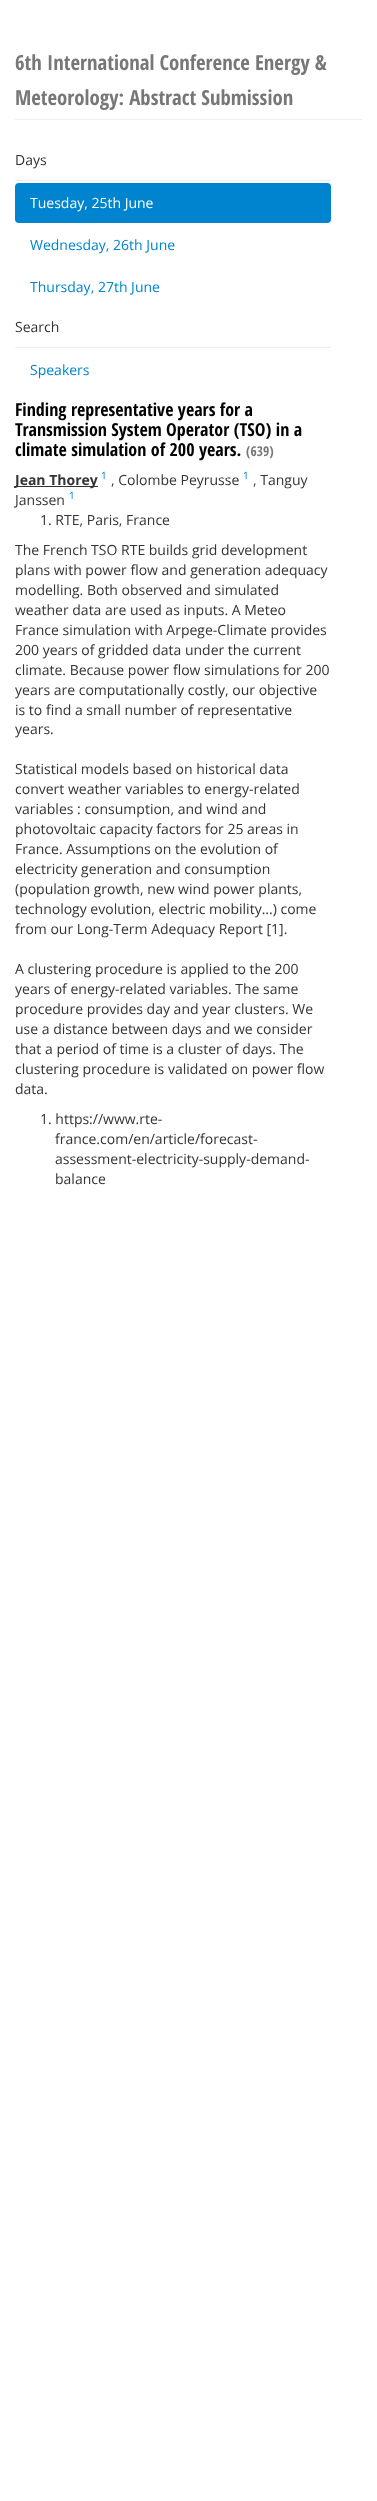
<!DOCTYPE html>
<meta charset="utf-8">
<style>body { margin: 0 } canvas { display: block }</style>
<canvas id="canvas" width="377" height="2501"></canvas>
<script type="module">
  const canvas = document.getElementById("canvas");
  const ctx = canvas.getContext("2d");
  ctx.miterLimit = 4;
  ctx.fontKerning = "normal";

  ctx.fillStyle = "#ffffff";
  ctx.fillRect(0, 0, 377, 2501);
  ctx.fillStyle = "#eeeeee";
  ctx.fillRect(15, 119, 347, 1);
  ctx.font = "bold 20.75px Open Sans Condensed";
  ctx.fillStyle = "#777777";
  ctx.fillText("6th International Conference Energy &", 15, 70);
  ctx.fillText("Meteorology: Abstract Submission", 15, 105);
  ctx.fillStyle = "#eeeeee";
  ctx.fillRect(15, 180, 316, 1);
  ctx.font = "14px Open Sans";
  ctx.fillStyle = "#333333";
  ctx.fillText("Days", 15, 165);
  ctx.fillStyle = "#0084d0";
  ctx.beginPath();
  ctx.roundRect(15, 183, 316, 40, 4);
  ctx.fill();
  ctx.fillStyle = "#ffffff";
  ctx.fillText("Tuesday, 25th June", 30, 208);
  ctx.fillStyle = "#0084d0";
  ctx.fillText("Wednesday, 26th June", 30, 250);
  ctx.fillText("Thursday, 27th June", 30, 292);
  ctx.fillStyle = "#eeeeee";
  ctx.fillRect(15, 347, 316, 1);
  ctx.fillStyle = "#333333";
  ctx.fillText("Search", 15, 332);
  ctx.fillStyle = "#0084d0";
  ctx.fillText("Speakers", 30, 375);
  ctx.font = "bold 18px Open Sans Condensed";
  ctx.fillStyle = "#000000";
  ctx.fillText("Finding representative years for a", 15, 416);
  ctx.fillText("Transmission System Operator (TSO) in a", 15, 436);
  ctx.fillText("climate simulation of 200 years.", 15, 456);
  ctx.font = "bold 13.5px Open Sans Condensed";
  ctx.fillStyle = "#777777";
  ctx.fillText("(639)", 246, 456);
  ctx.fillStyle = "#333333";
  ctx.fillRect(15, 486, 83, 1);
  ctx.font = "bold 14px Open Sans";
  ctx.fillText("Jean Thorey", 15, 485);
  ctx.font = "10px Open Sans";
  ctx.fillStyle = "#0084d0";
  ctx.fillText("1", 101, 479);
  ctx.font = "14px Open Sans";
  ctx.fillStyle = "#333333";
  ctx.fillText(", Colombe Peyrusse", 111, 485);
  ctx.font = "10px Open Sans";
  ctx.fillStyle = "#0084d0";
  ctx.fillText("1", 243, 479);
  ctx.font = "14px Open Sans";
  ctx.fillStyle = "#333333";
  ctx.fillText(", Tanguy", 253, 485);
  ctx.fillText("Janssen", 15, 505);
  ctx.font = "10px Open Sans";
  ctx.fillStyle = "#0084d0";
  ctx.fillText("1", 69, 499);
  ctx.font = "14px Open Sans";
  ctx.fillStyle = "#333333";
  ctx.fillText("1. RTE, Paris, France", 40, 525);
  ctx.fillText("The French TSO RTE builds grid development", 15, 555);
  ctx.fillText("plans with power flow and generation adequacy", 15, 575);
  ctx.fillText("modelling. Both observed and simulated", 15, 595);
  ctx.fillText("weather data are used as inputs. A Meteo", 15, 615);
  ctx.fillText("France simulation with Arpege-Climate provides", 15, 635);
  ctx.fillText("200 years of gridded data under the current", 15, 655);
  ctx.fillText("climate. Because power flow simulations for 200", 15, 675);
  ctx.fillText("years are computationally costly, our objective", 15, 695);
  ctx.fillText("is to find a small number of representative", 15, 715);
  ctx.fillText("years.", 15, 734);
  ctx.fillText("Statistical models based on historical data", 15, 774);
  ctx.fillText("convert weather variables to energy-related", 15, 794);
  ctx.fillText("variables : consumption, and wind and", 15, 814);
  ctx.fillText("photovoltaic capacity factors for 25 areas in", 15, 834);
  ctx.fillText("France. Assumptions on the evolution of", 15, 854);
  ctx.fillText("electricity generation and consumption", 15, 874);
  ctx.fillText("(population growth, new wind power plants,", 15, 894);
  ctx.fillText("technology evolution, electric mobility...) come", 15, 914);
  ctx.fillText("from our Long-Term Adequacy Report [1].", 15, 934);
  ctx.fillText("A clustering procedure is applied to the 200", 15, 974);
  ctx.fillText("years of energy-related variables. The same", 15, 994);
  ctx.fillText("procedure provides day and year clusters. We", 15, 1014);
  ctx.fillText("use a distance between days and we consider", 15, 1034);
  ctx.fillText("that a period of time is a cluster of days. The", 15, 1054);
  ctx.fillText("clustering procedure is validated on power flow", 15, 1074);
  ctx.fillText("data.", 15, 1094);
  ctx.fillText("1. https://www.rte-", 40, 1124);
  ctx.fillText("france.com/en/article/forecast-", 55, 1144);
  ctx.fillText("assessment-electricity-supply-demand-", 55, 1164);
  ctx.fillText("balance", 55, 1184);
</script>
